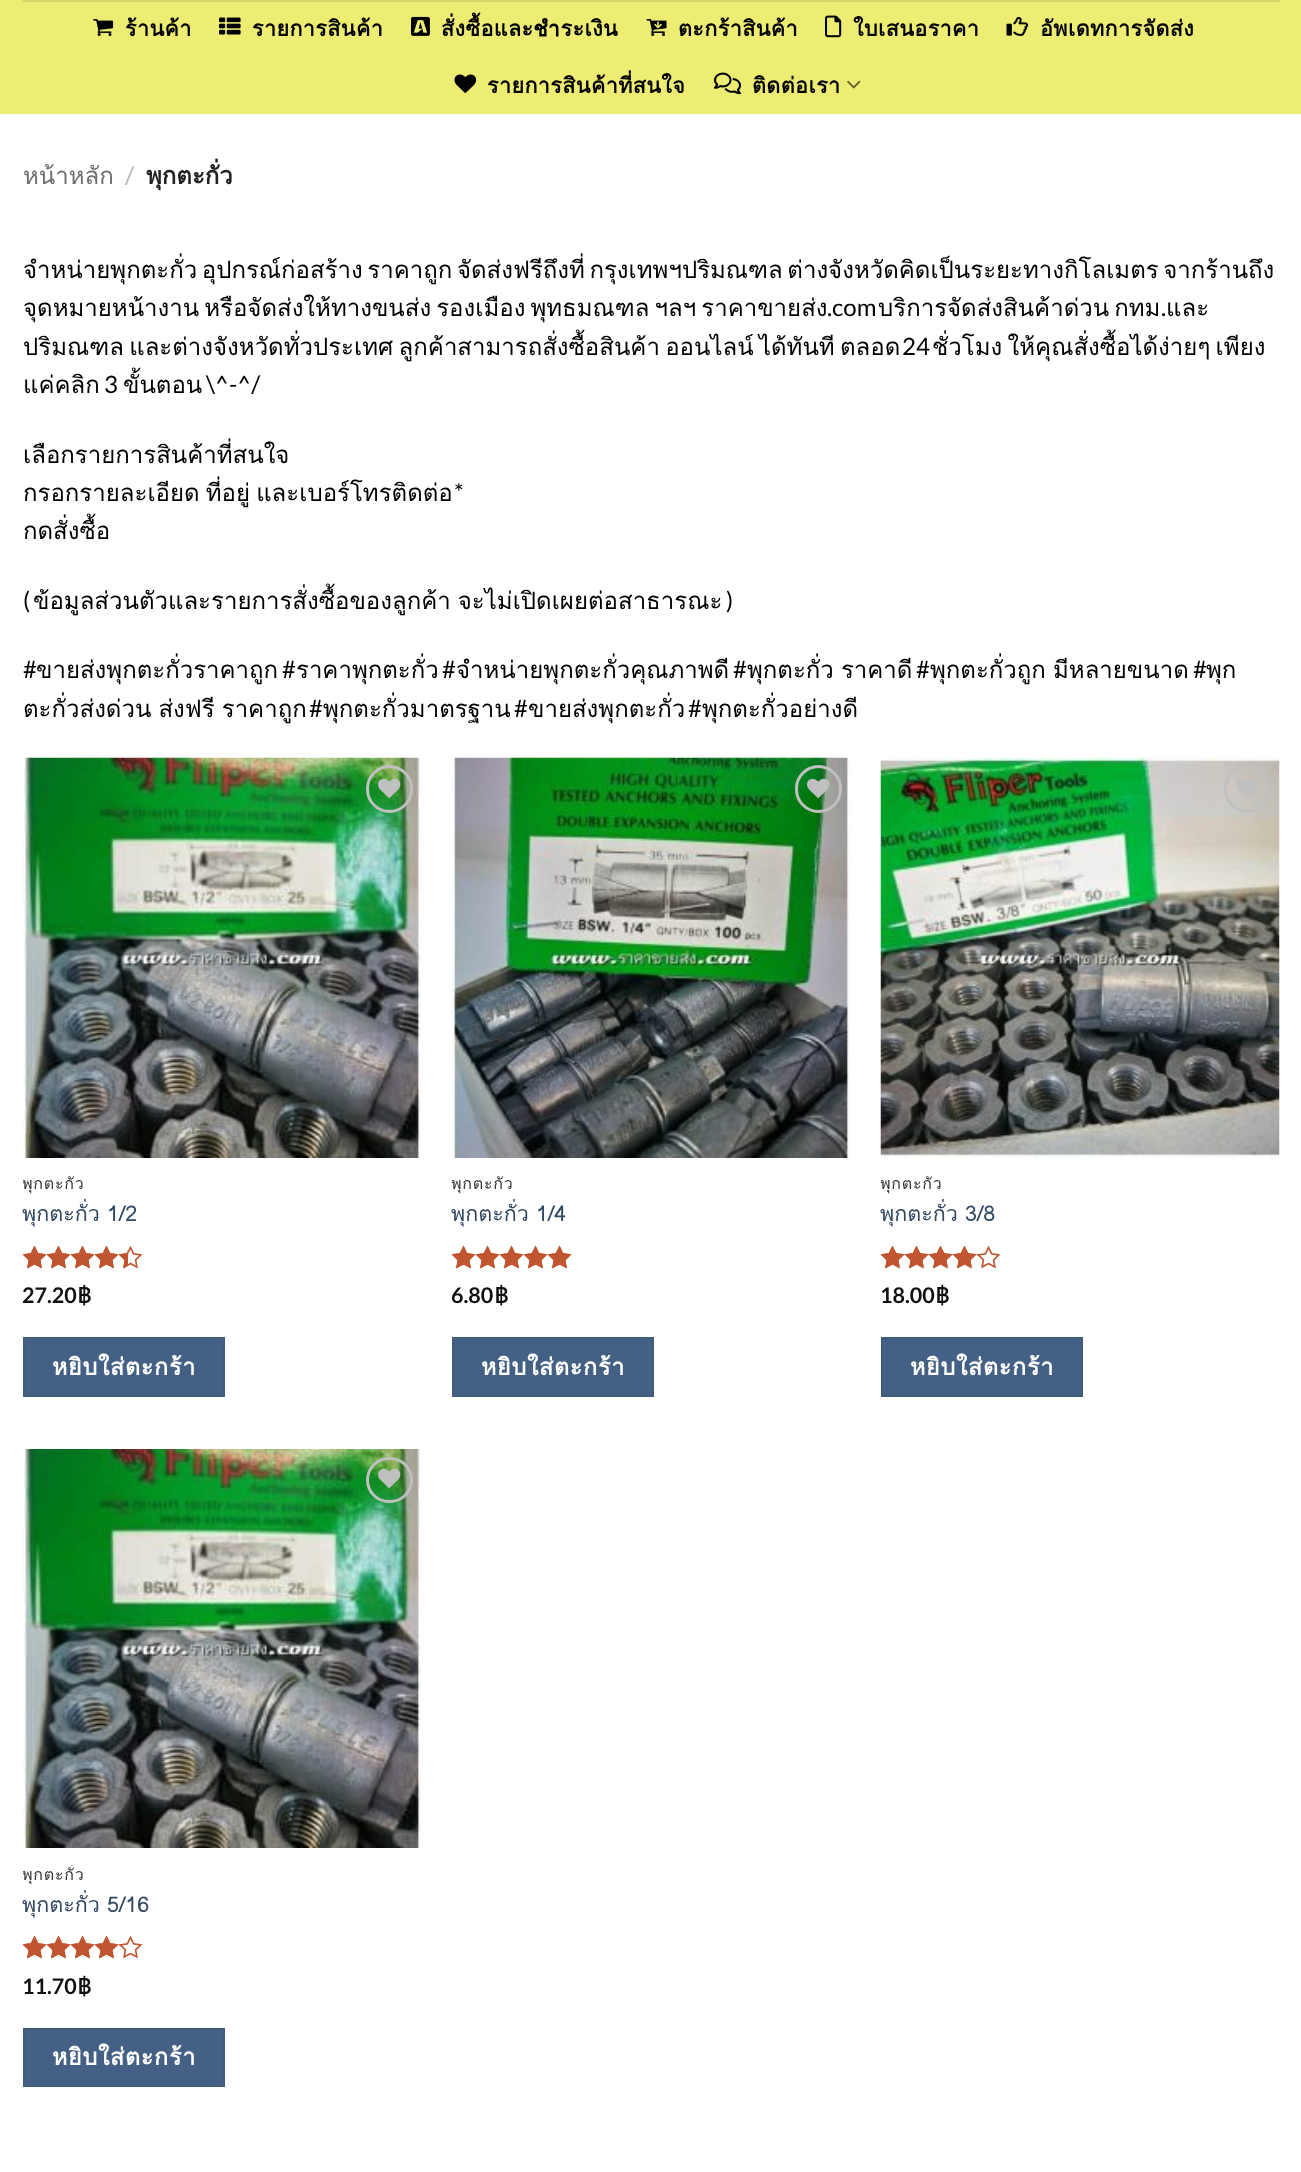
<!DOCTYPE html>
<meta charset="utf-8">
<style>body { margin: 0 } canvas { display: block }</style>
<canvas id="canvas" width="1301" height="2172"></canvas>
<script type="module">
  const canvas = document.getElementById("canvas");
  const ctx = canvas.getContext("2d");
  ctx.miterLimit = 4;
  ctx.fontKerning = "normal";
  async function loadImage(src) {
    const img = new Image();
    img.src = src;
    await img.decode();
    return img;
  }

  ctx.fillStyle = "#ffffff";
  ctx.fillRect(0, 0, 1301, 2172);
  ctx.fillStyle = "#eded74";
  ctx.fillRect(0, 0, 1301, 114);
  ctx.fillStyle = "#d5d568";
  ctx.fillRect(23, 0, 1257, 2);
  ctx.drawImage(await loadImage("img1.png"), 93, 19, 21, 17);
  ctx.letterSpacing = "0.4px";
  ctx.font = "bold 21.5px Loma";
  ctx.fillStyle = "#000000";
  ctx.fillText("ร้านค้า", 125, 36);
  ctx.drawImage(await loadImage("img2.png"), 219, 17, 22, 18);
  ctx.fillText("รายการสินค้า", 252, 36);
  ctx.drawImage(await loadImage("img3.png"), 411, 16, 19, 20);
  ctx.fillText("สั่งซื้อและชำระเงิน", 441, 36);
  ctx.drawImage(await loadImage("img4.png"), 646, 19, 21, 17);
  ctx.fillText("ตะกร้าสินค้า", 678, 36);
  ctx.drawImage(await loadImage("img5.png"), 825, 15, 17, 23);
  ctx.fillText("ใบเสนอราคา", 853, 36);
  ctx.drawImage(await loadImage("img6.png"), 1006, 17, 23, 19);
  ctx.fillText("อัพเดทการจัดส่ง", 1040, 36);
  ctx.drawImage(await loadImage("img7.png"), 454, 74, 23, 19);
  ctx.fillText("รายการสินค้าที่สนใจ", 487, 93);
  ctx.drawImage(await loadImage("img8.png"), 714, 72, 27, 23);
  ctx.fillText("ติดต่อเรา", 752, 93);
  ctx.drawImage(await loadImage("img9.png"), 847, 80, 14, 9);
  ctx.letterSpacing = "0px";
  ctx.font = "24px Loma";
  ctx.fillStyle = "#6e6e6e";
  ctx.fillText("หน้าหลัก", 23, 184);
  ctx.font = "24px Lato";
  ctx.fillStyle = "#b2b2b2";
  ctx.fillText("/", 125, 184);
  ctx.font = "bold 24px Loma";
  ctx.fillStyle = "#222222";
  ctx.fillText("พุกตะกั่ว", 146, 184);
  ctx.wordSpacing = "-3.5px";
  ctx.font = "24px Loma";
  ctx.fillStyle = "#000000";
  ctx.fillText("จำหน่ายพุกตะกั่ว อุปกรณ์ก่อสร้าง ราคาถูก จัดส่งฟรีถึงที่ กรุงเทพฯปริมณฑล ต่างจังหวัดคิดเป็นระยะทางกิโลเมตร จากร้านถึง", 23, 278);
  ctx.wordSpacing = "-3px";
  ctx.fillText("จุดหมายหน้างาน หรือจัดส่งให้ทางขนส่ง รองเมือง พุทธมณฑล ฯลฯ ราคาขายส่ง", 23, 316);
  ctx.wordSpacing = "0px";
  ctx.font = "24px Lato";
  ctx.fillText(".com", 827, 316);
  ctx.wordSpacing = "-3px";
  ctx.font = "24px Loma";
  ctx.fillText("บริการจัดส่งสินค้าด่วน กทม", 878, 316);
  ctx.wordSpacing = "0px";
  ctx.font = "24px Lato";
  ctx.fillText(".", 1161, 316);
  ctx.font = "24px Loma";
  ctx.fillText("และ", 1166, 316);
  ctx.wordSpacing = "-2.75px";
  ctx.fillText("ปริมณฑล และต่างจังหวัดทั่วประเทศ ลูกค้าสามารถสั่งซื้อสินค้า ออนไลน์ ได้ทันที ตลอด", 23, 355);
  ctx.wordSpacing = "0px";
  ctx.font = "24px Lato";
  ctx.fillText("24", 902, 355);
  ctx.wordSpacing = "-2.75px";
  ctx.font = "24px Loma";
  ctx.fillText("ชั่วโมง ให้คุณสั่งซื้อได้ง่ายๆ เพียง", 932, 355);
  ctx.wordSpacing = "0px";
  ctx.fillText("แค่คลิก", 23, 393);
  ctx.font = "24px Lato";
  ctx.fillText("3", 104, 393);
  ctx.font = "24px Loma";
  ctx.fillText("ขั้นตอน", 123, 393);
  ctx.font = "24px Lato";
  ctx.fillText("\\^-^/", 206, 393);
  ctx.font = "24px Loma";
  ctx.fillText("เลือกรายการสินค้าที่สนใจ", 23, 463);
  ctx.wordSpacing = "-2px";
  ctx.fillText("กรอกรายละเอียด ที่อยู่ และเบอร์โทรติดต่อ", 23, 501);
  ctx.wordSpacing = "0px";
  ctx.font = "24px Lato";
  ctx.fillText("*", 454, 501);
  ctx.font = "24px Loma";
  ctx.fillText("กดสั่งซื้อ", 23, 539);
  ctx.font = "24px Lato";
  ctx.fillText("(", 23, 609);
  ctx.wordSpacing = "-1px";
  ctx.font = "24px Loma";
  ctx.fillText("ข้อมูลส่วนตัวและรายการสั่งซื้อของลูกค้า จะไม่เปิดเผยต่อสาธารณะ", 33, 609);
  ctx.wordSpacing = "0px";
  ctx.font = "24px Lato";
  ctx.fillText(")", 726, 609);
  ctx.fillText("#", 23, 678);
  ctx.font = "24px Loma";
  ctx.fillText("ขายส่งพุกตะกั่วราคาถูก", 36, 678);
  ctx.font = "24px Lato";
  ctx.fillText("#", 282, 678);
  ctx.font = "24px Loma";
  ctx.fillText("ราคาพุกตะกั่ว", 296, 678);
  ctx.font = "24px Lato";
  ctx.fillText("#", 442, 678);
  ctx.font = "24px Loma";
  ctx.fillText("จำหน่ายพุกตะกั่วคุณภาพดี", 456, 678);
  ctx.font = "24px Lato";
  ctx.fillText("#", 733, 678);
  ctx.wordSpacing = "-1px";
  ctx.font = "24px Loma";
  ctx.fillText("พุกตะกั่ว ราคาดี", 747, 678);
  ctx.wordSpacing = "0px";
  ctx.font = "24px Lato";
  ctx.fillText("#", 916, 678);
  ctx.wordSpacing = "-1px";
  ctx.font = "24px Loma";
  ctx.fillText("พุกตะกั่วถูก มีหลายขนาด", 930, 678);
  ctx.wordSpacing = "0px";
  ctx.font = "24px Lato";
  ctx.fillText("#", 1193, 678);
  ctx.font = "24px Loma";
  ctx.fillText("พุก", 1206, 678);
  ctx.wordSpacing = "-1px";
  ctx.fillText("ตะกั่วส่งด่วน ส่งฟรี ราคาถูก", 23, 717);
  ctx.wordSpacing = "0px";
  ctx.font = "24px Lato";
  ctx.fillText("#", 309, 717);
  ctx.font = "24px Loma";
  ctx.fillText("พุกตะกั่วมาตรฐาน", 323, 717);
  ctx.font = "24px Lato";
  ctx.fillText("#", 514, 717);
  ctx.font = "24px Loma";
  ctx.fillText("ขายส่งพุกตะกั่ว", 528, 717);
  ctx.font = "24px Lato";
  ctx.fillText("#", 688, 717);
  ctx.font = "24px Loma";
  ctx.fillText("พุกตะกั่วอย่างดี", 702, 717);
  ctx.drawImage(await loadImage("img10.png"), 22, 757, 400, 401);
  ctx.beginPath();
  ctx.roundRect(367.5, 766.5, 44, 45, 22);
  ctx.strokeStyle = "#c0c0c0";
  ctx.lineWidth = 3;
  ctx.stroke();
  ctx.drawImage(await loadImage("img11.png"), 378, 778, 23, 20);
  ctx.save();
  ctx.beginPath();
  ctx.rect(23, 1175, 399, 19);
  ctx.clip();
  ctx.letterSpacing = "0.75px";
  ctx.font = "16px Loma";
  ctx.fillStyle = "#333333";
  ctx.fillText("พุกตะกั่ว", 22, 1189);
  ctx.restore();
  ctx.font = "21.5px Loma";
  ctx.fillStyle = "#334862";
  ctx.fillText("พุกตะกั่ว 1/2", 22, 1221);
  ctx.drawImage(await loadImage("img12.png"), 23, 1245, 120, 24);
  ctx.drawImage(await loadImage("img13.png"), 23, 1245, 105, 24);
  ctx.font = "bold 21.5px Lato";
  ctx.fillStyle = "#111111";
  ctx.fillText("27.20", 22, 1303);
  ctx.font = "bold 21.5px 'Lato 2'";
  ctx.fillText("฿", 77, 1303);
  ctx.fillStyle = "#446084";
  ctx.beginPath();
  ctx.rect(24, 1338, 200, 58);
  ctx.fill();
  ctx.strokeStyle = "#415b7d";
  ctx.lineWidth = 2;
  ctx.stroke();
  ctx.letterSpacing = "0.75px";
  ctx.font = "bold 23.25px Loma";
  ctx.fillStyle = "#ffffff";
  ctx.fillText("หยิบใส่ตะกร้า", 52, 1375);
  ctx.drawImage(await loadImage("img14.png"), 451, 757, 399, 401);
  ctx.beginPath();
  ctx.roundRect(796.5, 766.5, 44, 45, 22);
  ctx.strokeStyle = "#c0c0c0";
  ctx.lineWidth = 3;
  ctx.stroke();
  ctx.drawImage(await loadImage("img15.png"), 807, 778, 23, 20);
  ctx.save();
  ctx.beginPath();
  ctx.rect(452, 1175, 399, 19);
  ctx.clip();
  ctx.font = "16px Loma";
  ctx.fillStyle = "#333333";
  ctx.fillText("พุกตะกั่ว", 451, 1189);
  ctx.restore();
  ctx.letterSpacing = "0px";
  ctx.font = "21.5px Loma";
  ctx.fillStyle = "#334862";
  ctx.fillText("พุกตะกั่ว 1/4", 451, 1221);
  ctx.drawImage(await loadImage("img12.png"), 452, 1245, 120, 24);
  ctx.drawImage(await loadImage("img16.png"), 452, 1245, 120, 24);
  ctx.font = "bold 21.5px Lato";
  ctx.fillStyle = "#111111";
  ctx.fillText("6.80", 451, 1303);
  ctx.font = "bold 21.5px 'Lato 2'";
  ctx.fillText("฿", 494, 1303);
  ctx.fillStyle = "#446084";
  ctx.beginPath();
  ctx.rect(453, 1338, 200, 58);
  ctx.fill();
  ctx.strokeStyle = "#415b7d";
  ctx.lineWidth = 2;
  ctx.stroke();
  ctx.letterSpacing = "0.75px";
  ctx.font = "bold 23.25px Loma";
  ctx.fillStyle = "#ffffff";
  ctx.fillText("หยิบใส่ตะกร้า", 481, 1375);
  ctx.drawImage(await loadImage("img17.png"), 880, 757, 400, 401);
  ctx.beginPath();
  ctx.roundRect(1225.5, 766.5, 44, 45, 22);
  ctx.strokeStyle = "#c0c0c0";
  ctx.lineWidth = 3;
  ctx.stroke();
  ctx.drawImage(await loadImage("img18.png"), 1236, 779, 22, 19);
  ctx.save();
  ctx.beginPath();
  ctx.rect(881, 1175, 399, 19);
  ctx.clip();
  ctx.font = "16px Loma";
  ctx.fillStyle = "#333333";
  ctx.fillText("พุกตะกั่ว", 880, 1189);
  ctx.restore();
  ctx.letterSpacing = "0px";
  ctx.font = "21.5px Loma";
  ctx.fillStyle = "#334862";
  ctx.fillText("พุกตะกั่ว 3/8", 880, 1221);
  ctx.drawImage(await loadImage("img12.png"), 881, 1245, 120, 24);
  ctx.drawImage(await loadImage("img19.png"), 881, 1245, 97, 24);
  ctx.font = "bold 21.5px Lato";
  ctx.fillStyle = "#111111";
  ctx.fillText("18.00", 880, 1303);
  ctx.font = "bold 21.5px 'Lato 2'";
  ctx.fillText("฿", 935, 1303);
  ctx.fillStyle = "#446084";
  ctx.beginPath();
  ctx.rect(882, 1338, 200, 58);
  ctx.fill();
  ctx.strokeStyle = "#415b7d";
  ctx.lineWidth = 2;
  ctx.stroke();
  ctx.letterSpacing = "0.75px";
  ctx.font = "bold 23.25px Loma";
  ctx.fillStyle = "#ffffff";
  ctx.fillText("หยิบใส่ตะกร้า", 910, 1375);
  ctx.drawImage(await loadImage("img20.png"), 22, 1449, 400, 399);
  ctx.beginPath();
  ctx.roundRect(367.5, 1458.5, 44, 43, 21.5);
  ctx.strokeStyle = "#c0c0c0";
  ctx.lineWidth = 3;
  ctx.stroke();
  ctx.drawImage(await loadImage("img21.png"), 378, 1468, 23, 20);
  ctx.save();
  ctx.beginPath();
  ctx.rect(23, 1865, 399, 19);
  ctx.clip();
  ctx.font = "16px Loma";
  ctx.fillStyle = "#333333";
  ctx.fillText("พุกตะกั่ว", 22, 1880);
  ctx.restore();
  ctx.letterSpacing = "0px";
  ctx.font = "21.5px Loma";
  ctx.fillStyle = "#334862";
  ctx.fillText("พุกตะกั่ว 5/16", 22, 1912);
  ctx.drawImage(await loadImage("img12.png"), 23, 1935, 120, 24);
  ctx.drawImage(await loadImage("img19.png"), 23, 1935, 97, 24);
  ctx.font = "bold 21.5px Lato";
  ctx.fillStyle = "#111111";
  ctx.fillText("11.70", 22, 1994);
  ctx.font = "bold 21.5px 'Lato 2'";
  ctx.fillText("฿", 77, 1994);
  ctx.fillStyle = "#446084";
  ctx.beginPath();
  ctx.rect(24, 2029, 200, 57);
  ctx.fill();
  ctx.strokeStyle = "#415b7d";
  ctx.lineWidth = 2;
  ctx.stroke();
  ctx.letterSpacing = "0.75px";
  ctx.font = "bold 23.25px Loma";
  ctx.fillStyle = "#ffffff";
  ctx.fillText("หยิบใส่ตะกร้า", 52, 2065);
</script>
